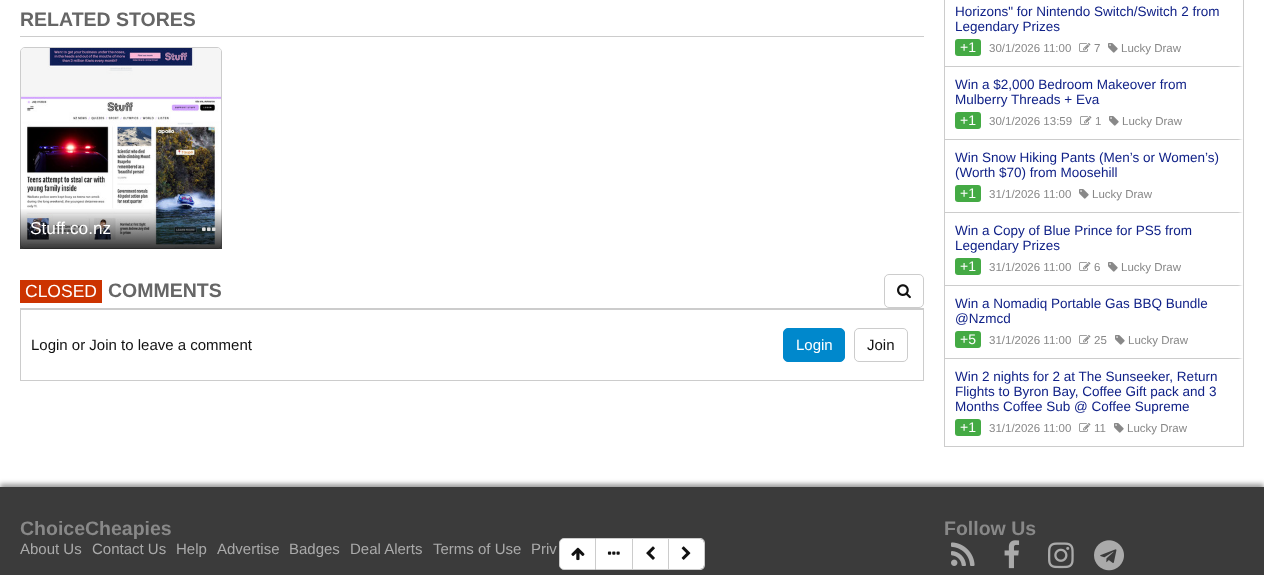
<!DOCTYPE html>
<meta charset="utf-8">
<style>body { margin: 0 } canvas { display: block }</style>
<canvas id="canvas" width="1264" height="575"></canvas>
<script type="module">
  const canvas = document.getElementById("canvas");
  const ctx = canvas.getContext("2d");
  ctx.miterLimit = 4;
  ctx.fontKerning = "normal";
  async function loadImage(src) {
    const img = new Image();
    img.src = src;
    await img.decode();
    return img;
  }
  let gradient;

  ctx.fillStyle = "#ffffff";
  ctx.fillRect(0, 0, 1264, 575);
  ctx.fillStyle = "#cccccc";
  ctx.fillRect(20, 36, 904, 1);
  ctx.font = "bold 19.5px Liberation Sans";
  ctx.fillStyle = "#666666";
  ctx.fillText("RELATED STORES", 20, 26);
  ctx.beginPath();
  ctx.roundRect(20.5, 47.5, 201, 201, 4.5);
  ctx.strokeStyle = "#cccccc";
  ctx.stroke();
  ctx.drawImage(await loadImage("img1.png"), 21, 48, 200, 200);
  gradient = ctx.createLinearGradient(121, 249, 121, 208);
  gradient.addColorStop(0, "rgba(0, 0, 0, 0.8)");
  gradient.addColorStop(1, "rgba(0, 0, 0, 0)");
  ctx.fillStyle = gradient;
  ctx.fillRect(20, 209, 202, 40);
  ctx.font = "17.25px Liberation Sans";
  ctx.fillStyle = "#ffffff";
  ctx.fillText("Stuff.co.nz", 30, 234);
  ctx.drawImage(await loadImage("img2.png"), 202, 227, 14, 5);
  ctx.fillStyle = "#cccccc";
  ctx.fillRect(20, 308, 904, 1);
  ctx.fillStyle = "#cc3300";
  ctx.fillRect(20, 280, 82, 23);
  ctx.font = "17.5px Liberation Sans";
  ctx.fillStyle = "#ffffff";
  ctx.fillText("CLOSED", 25, 297);
  ctx.font = "bold 19.5px Liberation Sans";
  ctx.fillStyle = "#666666";
  ctx.fillText("COMMENTS", 108, 297);
  ctx.beginPath();
  ctx.roundRect(884.5, 274.5, 39, 33, 4.5);
  ctx.stroke();
  ctx.drawImage(await loadImage("img3.png"), 897, 284, 14, 15);
  ctx.strokeRect(20.5, 309.5, 903, 71);
  ctx.font = "15px Liberation Sans";
  ctx.fillStyle = "#111111";
  ctx.fillText("Login or Join to leave a comment", 31, 350);
  ctx.fillStyle = "#0088cc";
  ctx.beginPath();
  ctx.roundRect(783.5, 328.5, 61, 33, 4.5);
  ctx.fill();
  ctx.strokeStyle = "#0088cc";
  ctx.stroke();
  ctx.fillStyle = "#ffffff";
  ctx.fillText("Login", 796, 350);
  ctx.beginPath();
  ctx.roundRect(854.5, 328.5, 53, 33, 4.5);
  ctx.strokeStyle = "#cccccc";
  ctx.stroke();
  ctx.fillStyle = "#111111";
  ctx.fillText("Join", 867, 350);
  ctx.fillStyle = "#cccccc";
  ctx.fillRect(1243, 0, 1, 447);
  ctx.fillRect(944, 446, 300, 1);
  ctx.fillRect(944, 0, 1, 447);
  ctx.font = "13.5px Liberation Sans";
  ctx.fillStyle = "#112288";
  ctx.fillText("Horizons\" for Nintendo Switch/Switch 2 from", 955, 16);
  ctx.fillText("Legendary Prizes", 955, 31);
  ctx.fillStyle = "#44aa44";
  ctx.beginPath();
  ctx.roundRect(955, 39, 26, 17, 3);
  ctx.fill();
  ctx.font = "14px Liberation Sans";
  ctx.fillStyle = "#ffffff";
  ctx.fillText("+1", 960, 52);
  ctx.font = "11.5px Liberation Sans";
  ctx.fillStyle = "#888888";
  ctx.fillText("30/1/2026 11:00", 989, 52);
  ctx.drawImage(await loadImage("img4.png"), 1079, 43, 12, 9);
  ctx.fillText("7", 1094, 52);
  ctx.drawImage(await loadImage("img5.png"), 1108, 43, 10, 10);
  ctx.fillText("Lucky Draw", 1121, 52);
  ctx.fillStyle = "#cccccc";
  ctx.beginPath();
  ctx.moveTo(945, 66);
  ctx.lineTo(1243, 66);
  ctx.lineTo(1238, 67);
  ctx.lineTo(945, 67);
  ctx.closePath();
  ctx.fill();
  ctx.font = "13.5px Liberation Sans";
  ctx.fillStyle = "#112288";
  ctx.fillText("Win a $2,000 Bedroom Makeover from", 955, 89);
  ctx.fillText("Mulberry Threads + Eva", 955, 104);
  ctx.fillStyle = "#44aa44";
  ctx.beginPath();
  ctx.roundRect(955, 112, 26, 17, 3);
  ctx.fill();
  ctx.font = "14px Liberation Sans";
  ctx.fillStyle = "#ffffff";
  ctx.fillText("+1", 960, 125);
  ctx.font = "11.5px Liberation Sans";
  ctx.fillStyle = "#888888";
  ctx.fillText("30/1/2026 13:59", 989, 125);
  ctx.drawImage(await loadImage("img4.png"), 1080, 116, 12, 9);
  ctx.fillText("1", 1095, 125);
  ctx.drawImage(await loadImage("img5.png"), 1109, 116, 10, 10);
  ctx.fillText("Lucky Draw", 1122, 125);
  ctx.fillStyle = "#cccccc";
  ctx.beginPath();
  ctx.moveTo(945, 139);
  ctx.lineTo(1243, 139);
  ctx.lineTo(1238, 140);
  ctx.lineTo(945, 140);
  ctx.closePath();
  ctx.fill();
  ctx.font = "13.5px Liberation Sans";
  ctx.fillStyle = "#112288";
  ctx.fillText("Win Snow Hiking Pants (Men’s or Women’s)", 955, 162);
  ctx.fillText("(Worth $70) from Moosehill", 955, 177);
  ctx.fillStyle = "#44aa44";
  ctx.beginPath();
  ctx.roundRect(955, 185, 26, 17, 3);
  ctx.fill();
  ctx.font = "14px Liberation Sans";
  ctx.fillStyle = "#ffffff";
  ctx.fillText("+1", 960, 198);
  ctx.font = "11.5px Liberation Sans";
  ctx.fillStyle = "#888888";
  ctx.fillText("31/1/2026 11:00", 989, 198);
  ctx.drawImage(await loadImage("img5.png"), 1079, 189, 10, 10);
  ctx.fillText("Lucky Draw", 1092, 198);
  ctx.fillStyle = "#cccccc";
  ctx.beginPath();
  ctx.moveTo(945, 212);
  ctx.lineTo(1243, 212);
  ctx.lineTo(1238, 213);
  ctx.lineTo(945, 213);
  ctx.closePath();
  ctx.fill();
  ctx.font = "13.5px Liberation Sans";
  ctx.fillStyle = "#112288";
  ctx.fillText("Win a Copy of Blue Prince for PS5 from", 955, 235);
  ctx.fillText("Legendary Prizes", 955, 250);
  ctx.fillStyle = "#44aa44";
  ctx.beginPath();
  ctx.roundRect(955, 258, 26, 17, 3);
  ctx.fill();
  ctx.font = "14px Liberation Sans";
  ctx.fillStyle = "#ffffff";
  ctx.fillText("+1", 960, 271);
  ctx.font = "11.5px Liberation Sans";
  ctx.fillStyle = "#888888";
  ctx.fillText("31/1/2026 11:00", 989, 271);
  ctx.drawImage(await loadImage("img4.png"), 1079, 262, 12, 9);
  ctx.fillText("6", 1094, 271);
  ctx.drawImage(await loadImage("img5.png"), 1108, 262, 10, 10);
  ctx.fillText("Lucky Draw", 1121, 271);
  ctx.fillStyle = "#cccccc";
  ctx.beginPath();
  ctx.moveTo(945, 285);
  ctx.lineTo(1243, 285);
  ctx.lineTo(1238, 286);
  ctx.lineTo(945, 286);
  ctx.closePath();
  ctx.fill();
  ctx.font = "13.5px Liberation Sans";
  ctx.fillStyle = "#112288";
  ctx.fillText("Win a Nomadiq Portable Gas BBQ Bundle", 955, 308);
  ctx.fillText("@Nzmcd", 955, 323);
  ctx.fillStyle = "#44aa44";
  ctx.beginPath();
  ctx.roundRect(955, 331, 26, 17, 3);
  ctx.fill();
  ctx.font = "14px Liberation Sans";
  ctx.fillStyle = "#ffffff";
  ctx.fillText("+5", 960, 344);
  ctx.font = "11.5px Liberation Sans";
  ctx.fillStyle = "#888888";
  ctx.fillText("31/1/2026 11:00", 989, 344);
  ctx.drawImage(await loadImage("img4.png"), 1079, 335, 12, 9);
  ctx.fillText("25", 1094, 344);
  ctx.drawImage(await loadImage("img5.png"), 1115, 335, 10, 10);
  ctx.fillText("Lucky Draw", 1128, 344);
  ctx.fillStyle = "#cccccc";
  ctx.beginPath();
  ctx.moveTo(945, 358);
  ctx.lineTo(1243, 358);
  ctx.lineTo(1238, 359);
  ctx.lineTo(945, 359);
  ctx.closePath();
  ctx.fill();
  ctx.font = "13.5px Liberation Sans";
  ctx.fillStyle = "#112288";
  ctx.fillText("Win 2 nights for 2 at The Sunseeker, Return", 955, 381);
  ctx.fillText("Flights to Byron Bay, Coffee Gift pack and 3", 955, 396);
  ctx.fillText("Months Coffee Sub @ Coffee Supreme", 955, 411);
  ctx.fillStyle = "#44aa44";
  ctx.beginPath();
  ctx.roundRect(955, 419, 26, 17, 3);
  ctx.fill();
  ctx.font = "14px Liberation Sans";
  ctx.fillStyle = "#ffffff";
  ctx.fillText("+1", 960, 432);
  ctx.font = "11.5px Liberation Sans";
  ctx.fillStyle = "#888888";
  ctx.fillText("31/1/2026 11:00", 989, 432);
  ctx.drawImage(await loadImage("img4.png"), 1079, 423, 12, 9);
  ctx.fillText("11", 1094, 432);
  ctx.drawImage(await loadImage("img5.png"), 1114, 423, 10, 10);
  ctx.fillText("Lucky Draw", 1127, 432);
  ctx.fillStyle = "rgba(0, 0, 0, 0.4)";
  ctx.filter = "blur(2.5px)";
  ctx.beginPath();
  ctx.rect(0, 484, 1264, 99);
  ctx.fill();
  ctx.filter = "none";
  ctx.fillStyle = "#3b3b3b";
  ctx.fillRect(0, 487, 1264, 88);
  ctx.fillStyle = "#ffffff";
  ctx.beginPath();
  ctx.roundRect(559.5, 538.5, 36, 31, [4.5, 0, 0, 4.5]);
  ctx.fill();
  ctx.stroke();
  ctx.drawImage(await loadImage("img6.png"), 571, 547, 14, 14);
  ctx.fillRect(596, 539, 36, 30);
  ctx.fillStyle = "#cccccc";
  ctx.fillRect(596, 538, 73, 1);
  ctx.fillRect(632, 538, 1, 32);
  ctx.fillRect(596, 569, 37, 1);
  ctx.drawImage(await loadImage("img7.png"), 607, 551, 13, 4);
  ctx.fillStyle = "#ffffff";
  ctx.fillRect(633, 539, 35, 30);
  ctx.fillStyle = "#cccccc";
  ctx.fillRect(668, 538, 1, 32);
  ctx.fillRect(633, 569, 36, 1);
  ctx.drawImage(await loadImage("img8.png"), 646, 546, 9, 14);
  ctx.fillStyle = "#ffffff";
  ctx.beginPath();
  ctx.roundRect(669, 539, 35, 30, [0, 4, 4, 0]);
  ctx.fill();
  ctx.fillStyle = "#cccccc";
  ctx.beginPath();
  ctx.moveTo(669, 538);
  ctx.lineTo(700, 538);
  ctx.bezierCurveTo(702.5, 538, 705, 540, 705, 543);
  ctx.lineTo(705, 565);
  ctx.bezierCurveTo(705, 568, 702.5, 570, 700, 570);
  ctx.lineTo(669, 570);
  ctx.closePath();
  ctx.moveTo(669, 539);
  ctx.lineTo(700, 539);
  ctx.bezierCurveTo(702, 539, 704, 541, 704, 543);
  ctx.lineTo(704, 565);
  ctx.bezierCurveTo(704, 567, 702, 569, 700, 569);
  ctx.lineTo(669, 569);
  ctx.closePath();
  ctx.fill("evenodd");
  ctx.drawImage(await loadImage("img9.png"), 681, 546, 10, 14);
  ctx.font = "bold 19.5px Liberation Sans";
  ctx.fillStyle = "#888888";
  ctx.fillText("ChoiceCheapies", 20, 535);
  ctx.font = "15px Liberation Sans";
  ctx.fillStyle = "#aaaaaa";
  ctx.fillText("About Us", 20, 554);
  ctx.fillText("Contact Us", 92, 554);
  ctx.fillText("Help", 176, 554);
  ctx.fillText("Advertise", 217, 554);
  ctx.fillText("Badges", 289, 554);
  ctx.fillText("Deal Alerts", 350, 554);
  ctx.fillText("Terms of Use", 433, 554);
  ctx.fillText("Priv", 531, 554);
  ctx.font = "bold 19.5px Liberation Sans";
  ctx.fillStyle = "#888888";
  ctx.fillText("Follow Us", 944, 535);
  ctx.drawImage(await loadImage("img10.png"), 951, 542, 24, 24);
  ctx.drawImage(await loadImage("img11.png"), 1004, 540, 16, 29);
  ctx.drawImage(await loadImage("img12.png"), 1048, 542, 26, 27);
  ctx.drawImage(await loadImage("img13.png"), 1094, 540, 30, 31);
</script>
